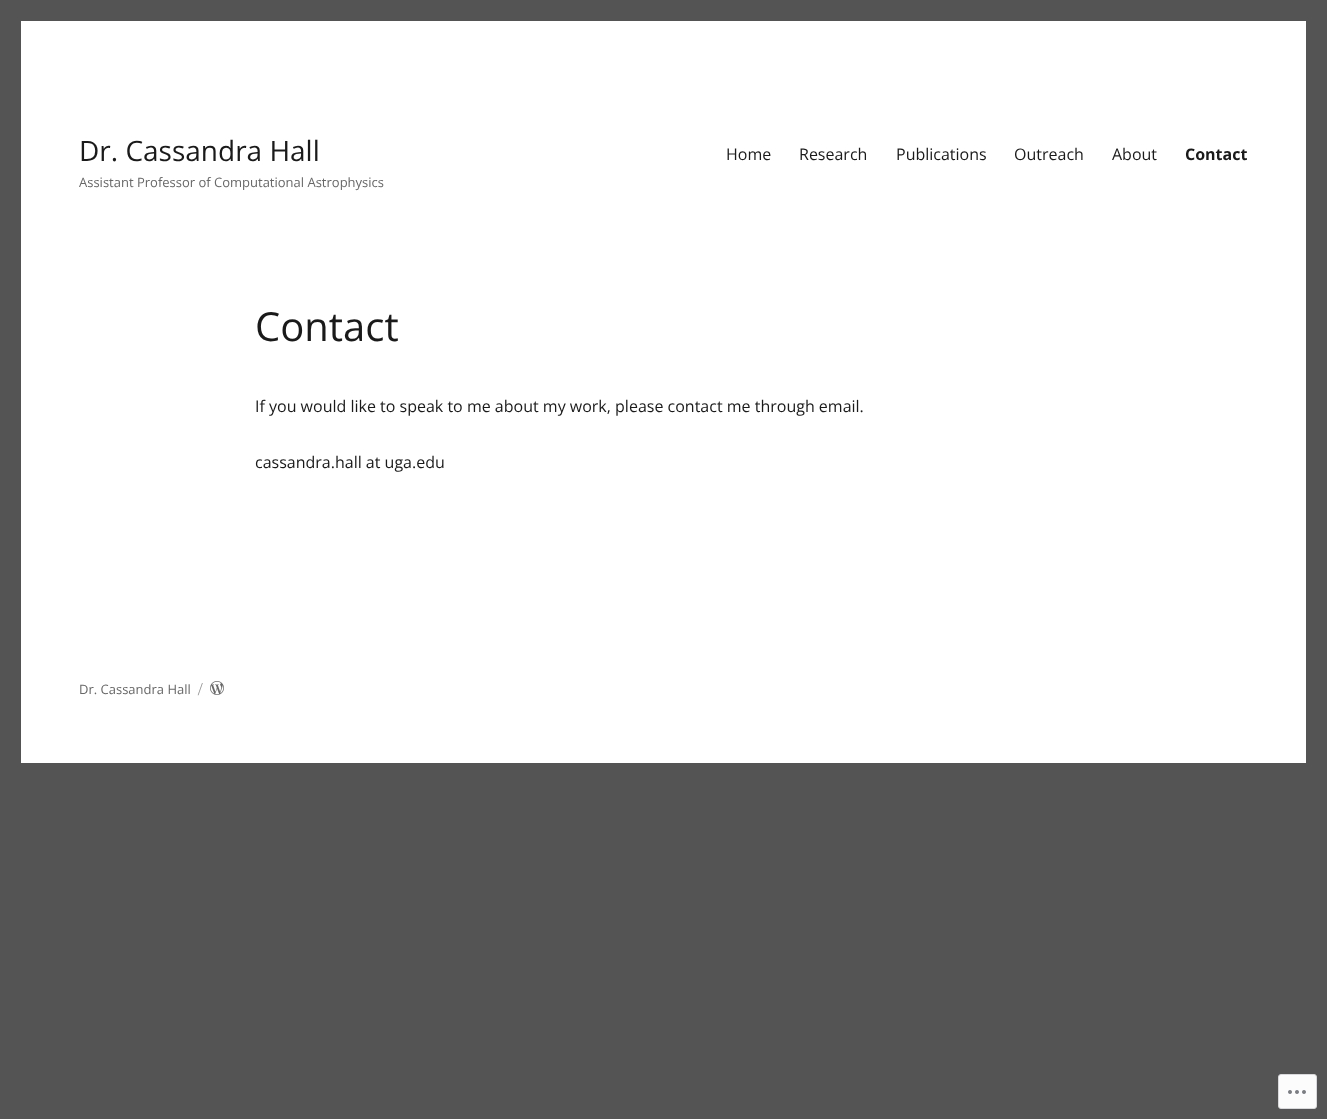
<!DOCTYPE html>
<meta charset="utf-8">
<style>body { margin: 0 } canvas { display: block }</style>
<canvas id="canvas" width="1327" height="1119"></canvas>
<script type="module">
  const canvas = document.getElementById("canvas");
  const ctx = canvas.getContext("2d");
  ctx.miterLimit = 4;
  ctx.fontKerning = "normal";
  async function loadImage(src) {
    const img = new Image();
    img.src = src;
    await img.decode();
    return img;
  }

  ctx.fillStyle = "#545454";
  ctx.fillRect(0, 0, 1327, 1119);
  ctx.fillStyle = "#ffffff";
  ctx.fillRect(21, 21, 1285, 742);
  ctx.font = "28px Open Sans";
  ctx.fillStyle = "#1a1a1a";
  ctx.fillText("Dr. Cassandra Hall", 79, 161);
  ctx.font = "13px Open Sans";
  ctx.fillStyle = "#686868";
  ctx.fillText("Assistant Professor of Computational Astrophysics", 79, 187);
  ctx.font = "16px Open Sans";
  ctx.fillStyle = "#1a1a1a";
  ctx.fillText("Home", 726, 160);
  ctx.fillText("Research", 799, 160);
  ctx.fillText("Publications", 896, 160);
  ctx.fillText("Outreach", 1014, 160);
  ctx.fillText("About", 1112, 160);
  ctx.font = "bold 16px Open Sans";
  ctx.fillText("Contact", 1185, 160);
  ctx.font = "40px Open Sans";
  ctx.fillText("Contact", 255, 341);
  ctx.font = "16px Open Sans";
  ctx.fillText("If you would like to speak to me about my work, please contact me through email.", 255, 412);
  ctx.fillText("cassandra.hall at uga.edu", 255, 468);
  ctx.font = "13px Open Sans";
  ctx.fillStyle = "#686868";
  ctx.fillText("Dr. Cassandra Hall", 79, 694);
  ctx.font = "13px Montserrat";
  ctx.fillStyle = "#959595";
  ctx.fillText("/", 198, 694);
  ctx.drawImage(await loadImage("img1.png"), 210, 681, 14, 14);
  ctx.fillStyle = "#fcfcfc";
  ctx.beginPath();
  ctx.roundRect(1278.5, 1074.5, 38, 34, 2.5);
  ctx.fill();
  ctx.strokeStyle = "#d9d9db";
  ctx.stroke();
  ctx.drawImage(await loadImage("img2.png"), 1288, 1090, 18, 4);
</script>
